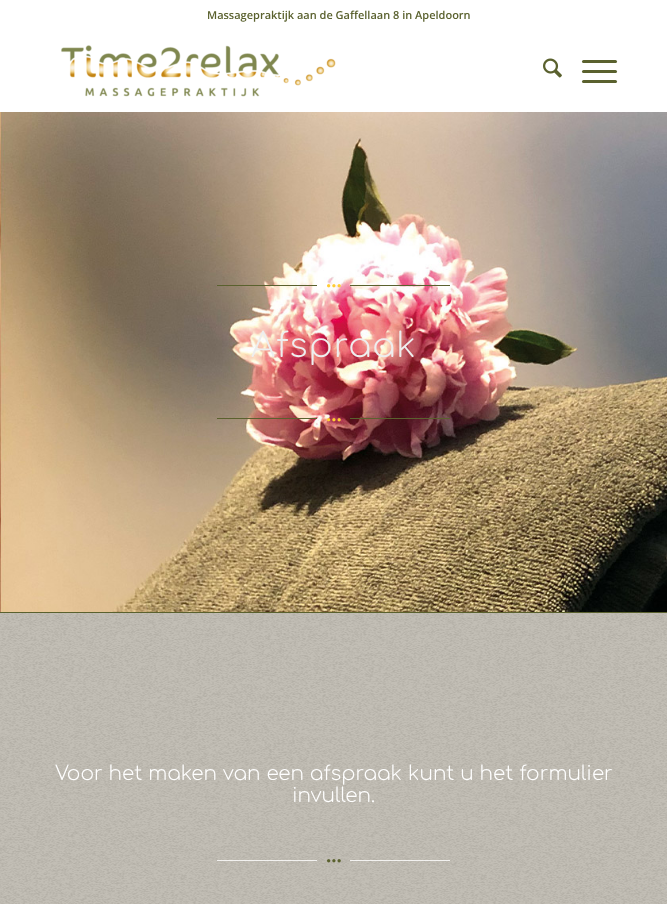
<!DOCTYPE html>
<meta charset="utf-8">
<style>body { margin: 0 } canvas { display: block }</style>
<canvas id="canvas" width="667" height="904"></canvas>
<script type="module">
  const canvas = document.getElementById("canvas");
  const ctx = canvas.getContext("2d");
  ctx.miterLimit = 4;
  ctx.fontKerning = "normal";
  async function loadImage(src) {
    const img = new Image();
    img.src = src;
    await img.decode();
    return img;
  }

  ctx.fillStyle = "#bab5ab";
  ctx.fillRect(0, 0, 667, 904);
  ctx.fillStyle = "#ffffff";
  ctx.fillRect(0, 0, 667, 112);
  ctx.font = "600 11px Open Sans";
  ctx.fillStyle = "#5a612e";
  ctx.fillText("Massagepraktijk aan de Gaffellaan 8 in Apeldoorn", 207, 19);
  ctx.drawImage(await loadImage("img1.png"), 61, 45, 275, 52);
  ctx.drawImage(await loadImage("img2.png"), 543, 58, 19, 20);
  ctx.beginPath();
  ctx.roundRect(582, 70, 35, 3, 1.5);
  ctx.fill();
  ctx.beginPath();
  ctx.roundRect(582, 60, 35, 3, 1.5);
  ctx.fill();
  ctx.beginPath();
  ctx.roundRect(582, 80, 35, 3, 1.5);
  ctx.fill();
  ctx.drawImage(await loadImage("img3.png"), 0, 112, 667, 500);
  ctx.fillRect(217, 285, 100, 1);
  ctx.drawImage(await loadImage("img4.png"), 327, 284, 14, 4);
  ctx.fillRect(350, 285, 100, 1);
  ctx.letterSpacing = "1px";
  ctx.font = "300 34px Comfortaa";
  ctx.fillStyle = "#eeeeee";
  ctx.fillText("Afspraak", 251, 357);
  ctx.fillStyle = "#5a612e";
  ctx.fillRect(217, 418, 100, 1);
  ctx.drawImage(await loadImage("img5.png"), 327, 418, 14, 4);
  ctx.fillRect(350, 418, 100, 1);
  ctx.drawImage(await loadImage("img6.png"), 0, 613, 667, 291);
  ctx.fillRect(0, 612, 667, 1);
  ctx.letterSpacing = "0px";
  ctx.font = "300 20px Comfortaa";
  ctx.fillStyle = "#ffffff";
  ctx.fillText("Voor het maken van een afspraak kunt u het formulier", 55, 780);
  ctx.fillText("invullen.", 292, 802);
  ctx.fillStyle = "rgba(255, 255, 255, 0.8)";
  ctx.fillRect(217, 860, 100, 1);
  ctx.drawImage(await loadImage("img7.png"), 327, 859, 14, 4);
  ctx.fillRect(350, 860, 100, 1);
</script>
